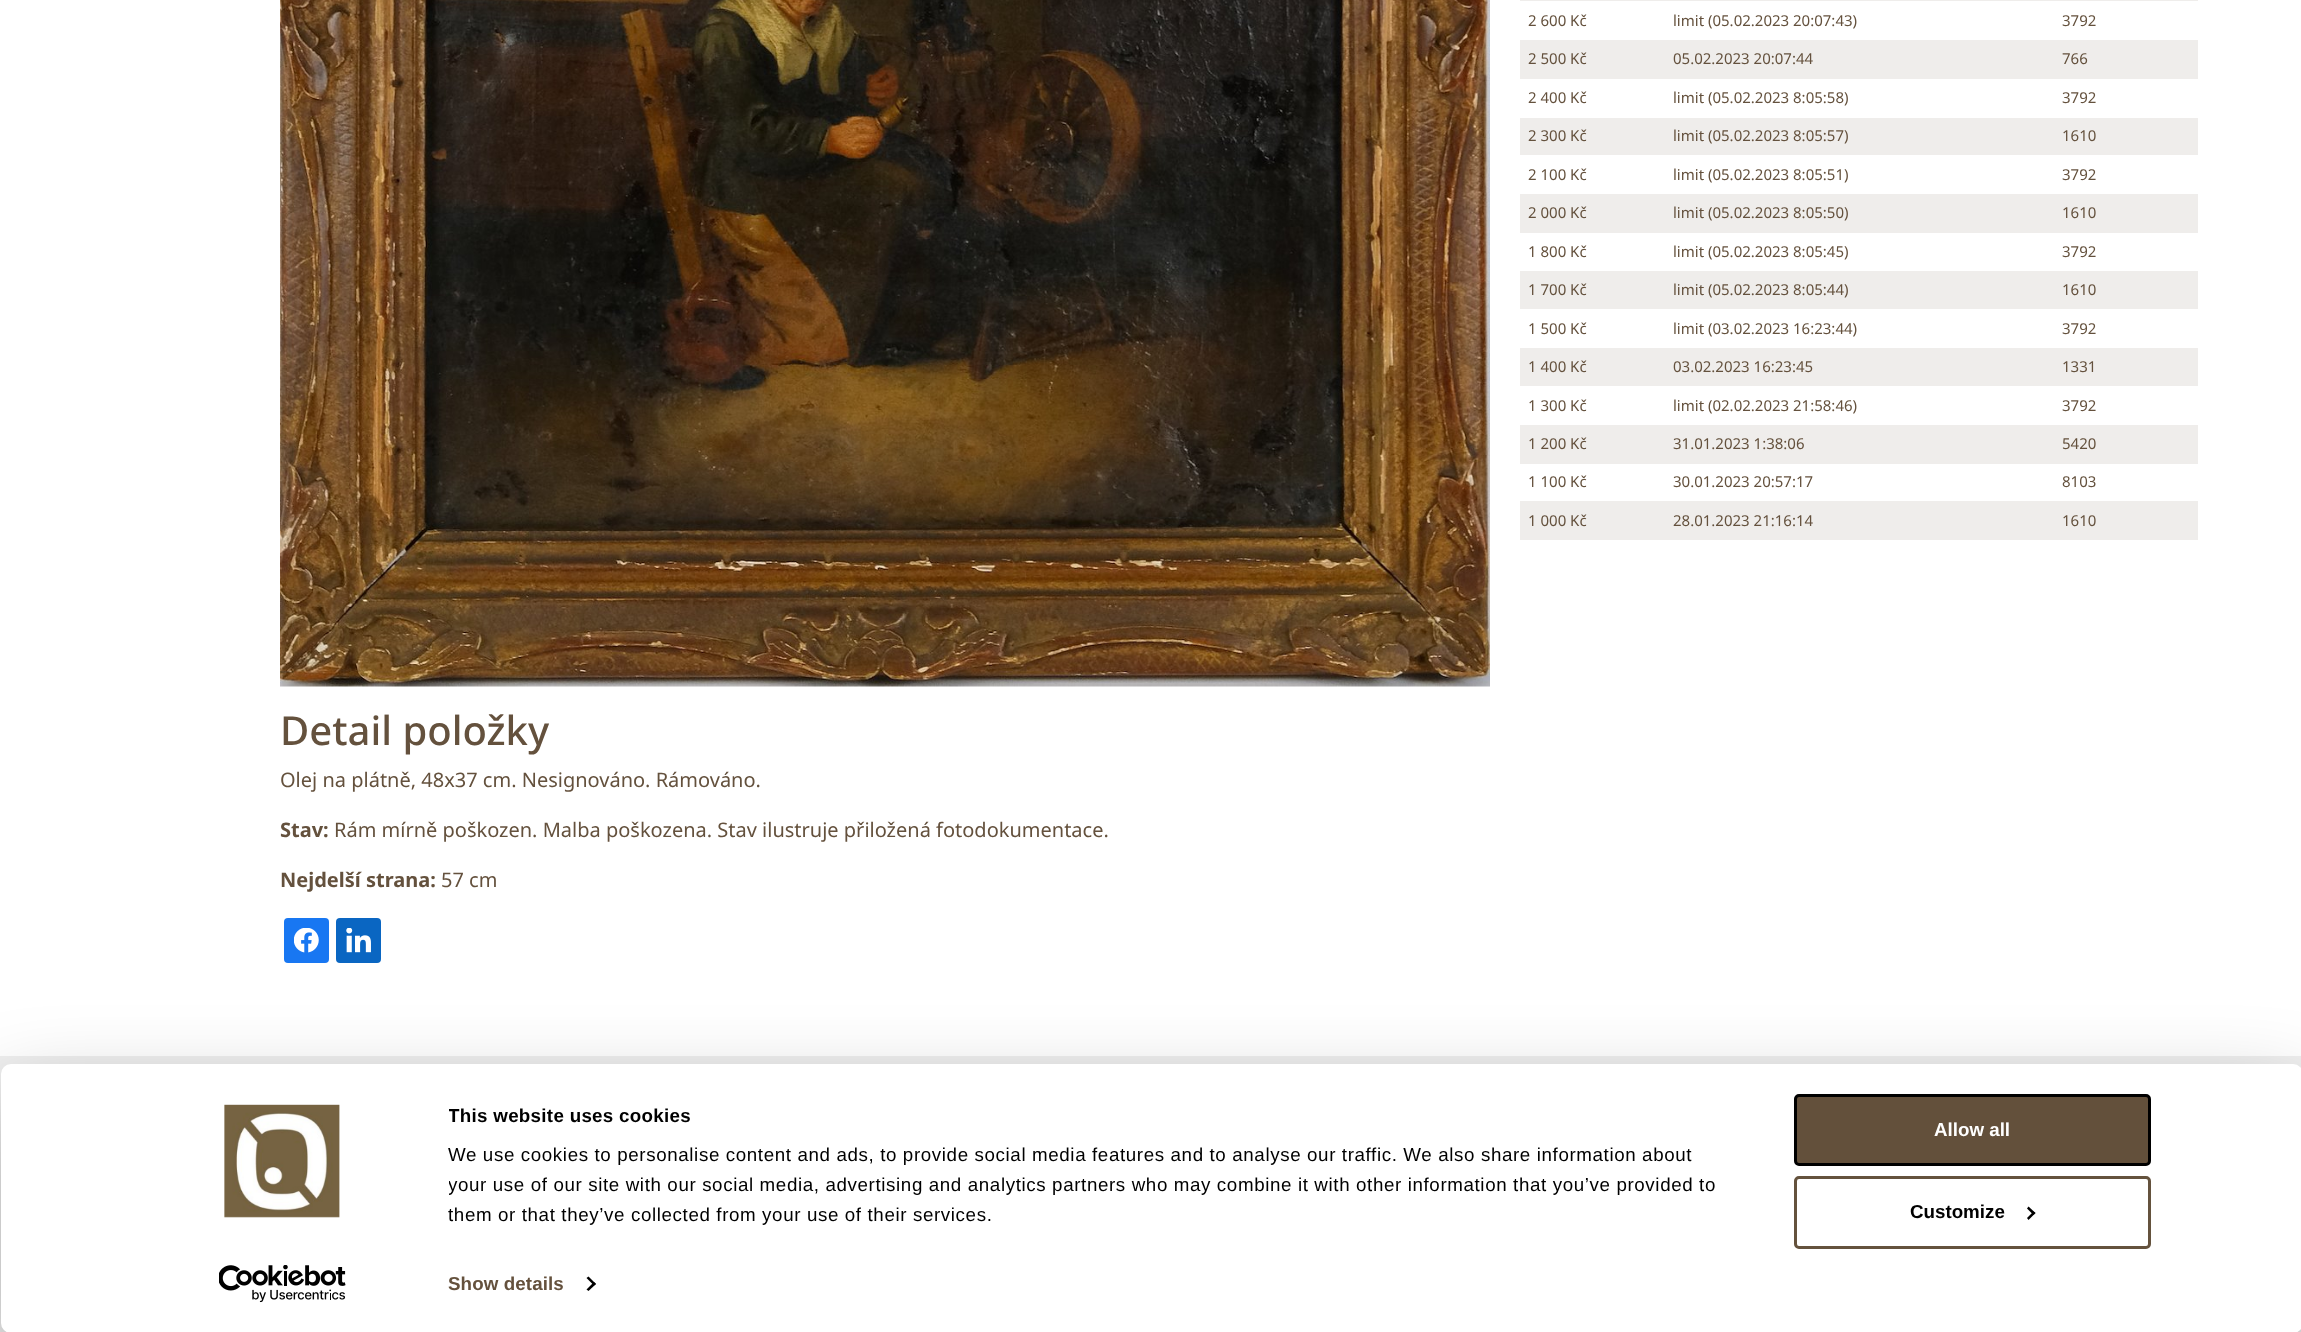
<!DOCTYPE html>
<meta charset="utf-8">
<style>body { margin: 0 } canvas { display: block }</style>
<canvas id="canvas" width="2301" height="1332"></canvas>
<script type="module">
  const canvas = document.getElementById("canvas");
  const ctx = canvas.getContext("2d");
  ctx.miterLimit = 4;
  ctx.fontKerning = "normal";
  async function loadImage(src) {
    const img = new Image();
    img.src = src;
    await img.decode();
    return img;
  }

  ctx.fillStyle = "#ffffff";
  ctx.fillRect(0, 0, 2301, 1332);
  ctx.fillStyle = "#efedeb";
  ctx.fillRect(1520, 0, 678, 1);
  ctx.font = "15px Noto Sans";
  ctx.fillStyle = "#64513d";
  ctx.fillText("2 600 Kč", 1528, 26);
  ctx.fillText("limit (05.02.2023 20:07:43)", 1673, 26);
  ctx.fillText("3792", 2062, 26);
  ctx.fillStyle = "#efedeb";
  ctx.fillRect(1520, 40, 678, 39);
  ctx.fillStyle = "#64513d";
  ctx.fillText("2 500 Kč", 1528, 64);
  ctx.fillText("05.02.2023 20:07:44", 1673, 64);
  ctx.fillText("766", 2062, 64);
  ctx.fillText("2 400 Kč", 1528, 103);
  ctx.fillText("limit (05.02.2023 8:05:58)", 1673, 103);
  ctx.fillText("3792", 2062, 103);
  ctx.fillStyle = "#efedeb";
  ctx.fillRect(1520, 118, 678, 37);
  ctx.fillStyle = "#64513d";
  ctx.fillText("2 300 Kč", 1528, 141);
  ctx.fillText("limit (05.02.2023 8:05:57)", 1673, 141);
  ctx.fillText("1610", 2062, 141);
  ctx.fillText("2 100 Kč", 1528, 180);
  ctx.fillText("limit (05.02.2023 8:05:51)", 1673, 180);
  ctx.fillText("3792", 2062, 180);
  ctx.fillStyle = "#efedeb";
  ctx.fillRect(1520, 194, 678, 39);
  ctx.fillStyle = "#64513d";
  ctx.fillText("2 000 Kč", 1528, 218);
  ctx.fillText("limit (05.02.2023 8:05:50)", 1673, 218);
  ctx.fillText("1610", 2062, 218);
  ctx.fillText("1 800 Kč", 1528, 257);
  ctx.fillText("limit (05.02.2023 8:05:45)", 1673, 257);
  ctx.fillText("3792", 2062, 257);
  ctx.fillStyle = "#efedeb";
  ctx.fillRect(1520, 271, 678, 38);
  ctx.fillStyle = "#64513d";
  ctx.fillText("1 700 Kč", 1528, 295);
  ctx.fillText("limit (05.02.2023 8:05:44)", 1673, 295);
  ctx.fillText("1610", 2062, 295);
  ctx.fillText("1 500 Kč", 1528, 334);
  ctx.fillText("limit (03.02.2023 16:23:44)", 1673, 334);
  ctx.fillText("3792", 2062, 334);
  ctx.fillStyle = "#efedeb";
  ctx.fillRect(1520, 348, 678, 38);
  ctx.fillStyle = "#64513d";
  ctx.fillText("1 400 Kč", 1528, 372);
  ctx.fillText("03.02.2023 16:23:45", 1673, 372);
  ctx.fillText("1331", 2062, 372);
  ctx.fillText("1 300 Kč", 1528, 411);
  ctx.fillText("limit (02.02.2023 21:58:46)", 1673, 411);
  ctx.fillText("3792", 2062, 411);
  ctx.fillStyle = "#efedeb";
  ctx.fillRect(1520, 425, 678, 39);
  ctx.fillStyle = "#64513d";
  ctx.fillText("1 200 Kč", 1528, 449);
  ctx.fillText("31.01.2023 1:38:06", 1673, 449);
  ctx.fillText("5420", 2062, 449);
  ctx.fillText("1 100 Kč", 1528, 487);
  ctx.fillText("30.01.2023 20:57:17", 1673, 487);
  ctx.fillText("8103", 2062, 487);
  ctx.fillStyle = "#efedeb";
  ctx.fillRect(1520, 501, 678, 39);
  ctx.fillStyle = "#64513d";
  ctx.fillText("1 000 Kč", 1528, 526);
  ctx.fillText("28.01.2023 21:16:14", 1673, 526);
  ctx.fillText("1610", 2062, 526);
  ctx.drawImage(await loadImage("img1.png"), 280, 0, 1210, 687);
  ctx.font = "500 40px Noto Sans";
  ctx.fillText("Detail položky", 280, 745);
  ctx.font = "20px Noto Sans";
  ctx.fillText("Olej na plátně, 48x37 cm. Nesignováno. Rámováno.", 280, 787);
  ctx.font = "bold 20px Noto Sans";
  ctx.fillText("Stav:", 280, 837);
  ctx.font = "20px Noto Sans";
  ctx.fillText("Rám mírně poškozen. Malba poškozena. Stav ilustruje přiložená fotodokumentace.", 334, 837);
  ctx.font = "bold 20px Noto Sans";
  ctx.fillText("Nejdelší strana:", 280, 887);
  ctx.font = "20px Noto Sans";
  ctx.fillText("57 cm", 441, 887);
  ctx.fillStyle = "#1877f2";
  ctx.beginPath();
  ctx.roundRect(284, 918, 45, 45, 4);
  ctx.fill();
  ctx.drawImage(await loadImage("img2.png"), 294, 928, 25, 25);
  ctx.fillStyle = "#0a66c2";
  ctx.beginPath();
  ctx.roundRect(336, 918, 45, 45, 4);
  ctx.fill();
  ctx.drawImage(await loadImage("img3.png"), 346, 928, 25, 25);
  ctx.fillStyle = "#efefef";
  ctx.fillRect(0, 1056, 2301, 276);
  ctx.fillStyle = "rgba(0, 0, 0, 0.3)";
  ctx.filter = "blur(44px)";
  ctx.beginPath();
  ctx.roundRect(1, 1101, 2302, 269, 10);
  ctx.fill();
  ctx.filter = "none";
  ctx.fillStyle = "#ffffff";
  ctx.beginPath();
  ctx.roundRect(1, 1064, 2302, 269, 10);
  ctx.fill();
  ctx.drawImage(await loadImage("img4.png"), 224, 1104, 116, 114);
  ctx.drawImage(await loadImage("img5.png"), 219, 1265, 127, 38);
  ctx.save();
  ctx.beginPath();
  ctx.rect(449, 1101, 1310, 129);
  ctx.clip();
  ctx.letterSpacing = "0.3px";
  ctx.font = "bold 18.75px Liberation Sans";
  ctx.fillStyle = "#000000";
  ctx.fillText("This website uses cookies", 448, 1122);
  ctx.restore();
  ctx.letterSpacing = "0.62px";
  ctx.font = "18.75px Liberation Sans";
  ctx.fillStyle = "#000000";
  ctx.fillText("We use cookies to personalise content and ads, to provide social media features and to analyse our traffic. We also share information about", 448, 1161);
  ctx.save();
  ctx.beginPath();
  ctx.rect(449, 1101, 1310, 129);
  ctx.clip();
  ctx.fillText("your use of our site with our social media, advertising and analytics partners who may combine it with other information that you’ve provided to", 448, 1191);
  ctx.restore();
  ctx.fillText("them or that they’ve collected from your use of their services.", 448, 1221);
  ctx.letterSpacing = "0.1px";
  ctx.font = "bold 18.75px Liberation Sans";
  ctx.fillStyle = "#64513d";
  ctx.fillText("Show details", 448, 1290);
  ctx.fillStyle = "#000000";
  ctx.beginPath();
  ctx.moveTo(588.5, 1276.5);
  ctx.lineTo(596, 1284);
  ctx.lineTo(594, 1285.5);
  ctx.lineTo(586.5, 1278);
  ctx.closePath();
  ctx.fill();
  ctx.beginPath();
  ctx.moveTo(594, 1282);
  ctx.lineTo(596, 1284);
  ctx.lineTo(588.5, 1291);
  ctx.lineTo(586.5, 1289.5);
  ctx.closePath();
  ctx.fill();
  ctx.fillStyle = "#63503b";
  ctx.beginPath();
  ctx.roundRect(1795.5, 1095.5, 354, 69, 3.5);
  ctx.fill();
  ctx.strokeStyle = "#000000";
  ctx.lineWidth = 3;
  ctx.stroke();
  ctx.letterSpacing = "0px";
  ctx.fillStyle = "#ffffff";
  ctx.fillText("Allow all", 1934, 1136);
  ctx.beginPath();
  ctx.roundRect(1795.5, 1177.5, 354, 70, 3.5);
  ctx.strokeStyle = "#64523d";
  ctx.stroke();
  ctx.fillStyle = "#000000";
  ctx.fillText("Customize", 1910, 1218);
  ctx.beginPath();
  ctx.moveTo(2028.5, 1206.5);
  ctx.lineTo(2035.5, 1213);
  ctx.lineTo(2033.5, 1215);
  ctx.lineTo(2027, 1208.5);
  ctx.closePath();
  ctx.fill();
  ctx.beginPath();
  ctx.moveTo(2033.5, 1211.5);
  ctx.lineTo(2035.5, 1213);
  ctx.lineTo(2028.5, 1220);
  ctx.lineTo(2027, 1218);
  ctx.closePath();
  ctx.fill();
</script>
